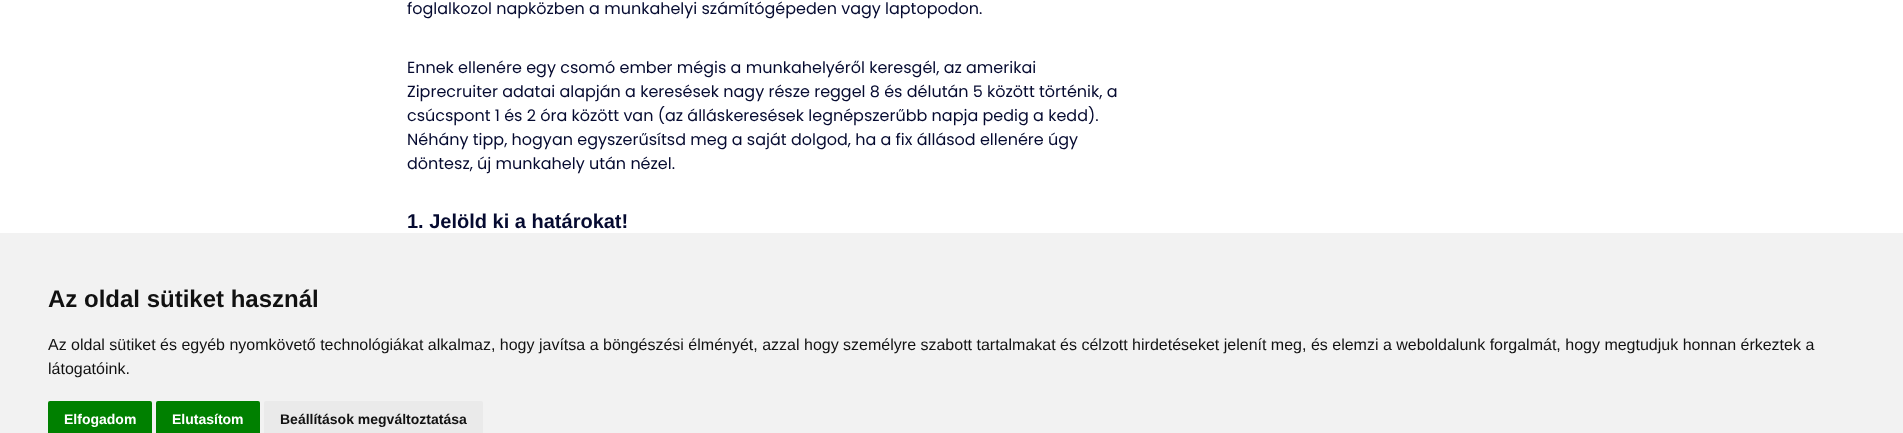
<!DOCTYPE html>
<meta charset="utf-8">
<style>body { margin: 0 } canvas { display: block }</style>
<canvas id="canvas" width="1903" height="433"></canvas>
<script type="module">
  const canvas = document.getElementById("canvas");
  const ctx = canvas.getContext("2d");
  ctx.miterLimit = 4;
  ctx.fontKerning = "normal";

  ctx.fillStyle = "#ffffff";
  ctx.fillRect(0, 0, 1903, 433);
  ctx.font = "16px Poppins";
  ctx.fillStyle = "#050a30";
  ctx.fillText("foglalkozol napközben a munkahelyi számítógépeden vagy laptopodon.", 407, 14);
  ctx.fillText("Ennek ellenére egy csomó ember mégis a munkahelyéről keresgél, az amerikai", 407, 73);
  ctx.fillText("Ziprecruiter adatai alapján a keresések nagy része reggel 8 és délután 5 között történik, a", 407, 97);
  ctx.fillText("csúcspont 1 és 2 óra között van (az álláskeresések legnépszerűbb napja pedig a kedd).", 407, 121);
  ctx.fillText("Néhány tipp, hogyan egyszerűsítsd meg a saját dolgod, ha a fix állásod ellenére úgy", 407, 145);
  ctx.fillText("döntesz, új munkahely után nézel.", 407, 169);
  ctx.font = "bold 20px Liberation Sans";
  ctx.fillText("1. Jelöld ki a határokat!", 407, 228);
  ctx.fillStyle = "#f2f2f2";
  ctx.fillRect(0, 233, 1903, 200);
  ctx.font = "bold 24px Liberation Sans";
  ctx.fillStyle = "#111111";
  ctx.fillText("Az oldal sütiket használ", 48, 307);
  ctx.font = "16px Liberation Sans";
  ctx.fillText("Az oldal sütiket és egyéb nyomkövető technológiákat alkalmaz, hogy javítsa a böngészési élményét, azzal hogy személyre szabott tartalmakat és célzott hirdetéseket jelenít meg, és elemzi a weboldalunk forgalmát, hogy megtudjuk honnan érkeztek a", 48, 350);
  ctx.fillText("látogatóink.", 48, 374);
  ctx.fillStyle = "#008000";
  ctx.beginPath();
  ctx.roundRect(48, 401, 104, 32, [2, 2, 0, 0]);
  ctx.fill();
  ctx.font = "bold 14px Liberation Sans";
  ctx.fillStyle = "#ffffff";
  ctx.fillText("Elfogadom", 64, 424);
  ctx.fillStyle = "#008000";
  ctx.beginPath();
  ctx.roundRect(156, 401, 104, 32, [2, 2, 0, 0]);
  ctx.fill();
  ctx.fillStyle = "#ffffff";
  ctx.fillText("Elutasítom", 172, 424);
  ctx.fillStyle = "#eaeaea";
  ctx.beginPath();
  ctx.roundRect(264, 401, 219, 32, [2, 2, 0, 0]);
  ctx.fill();
  ctx.fillStyle = "#111111";
  ctx.fillText("Beállítások megváltoztatása", 280, 424);
</script>
